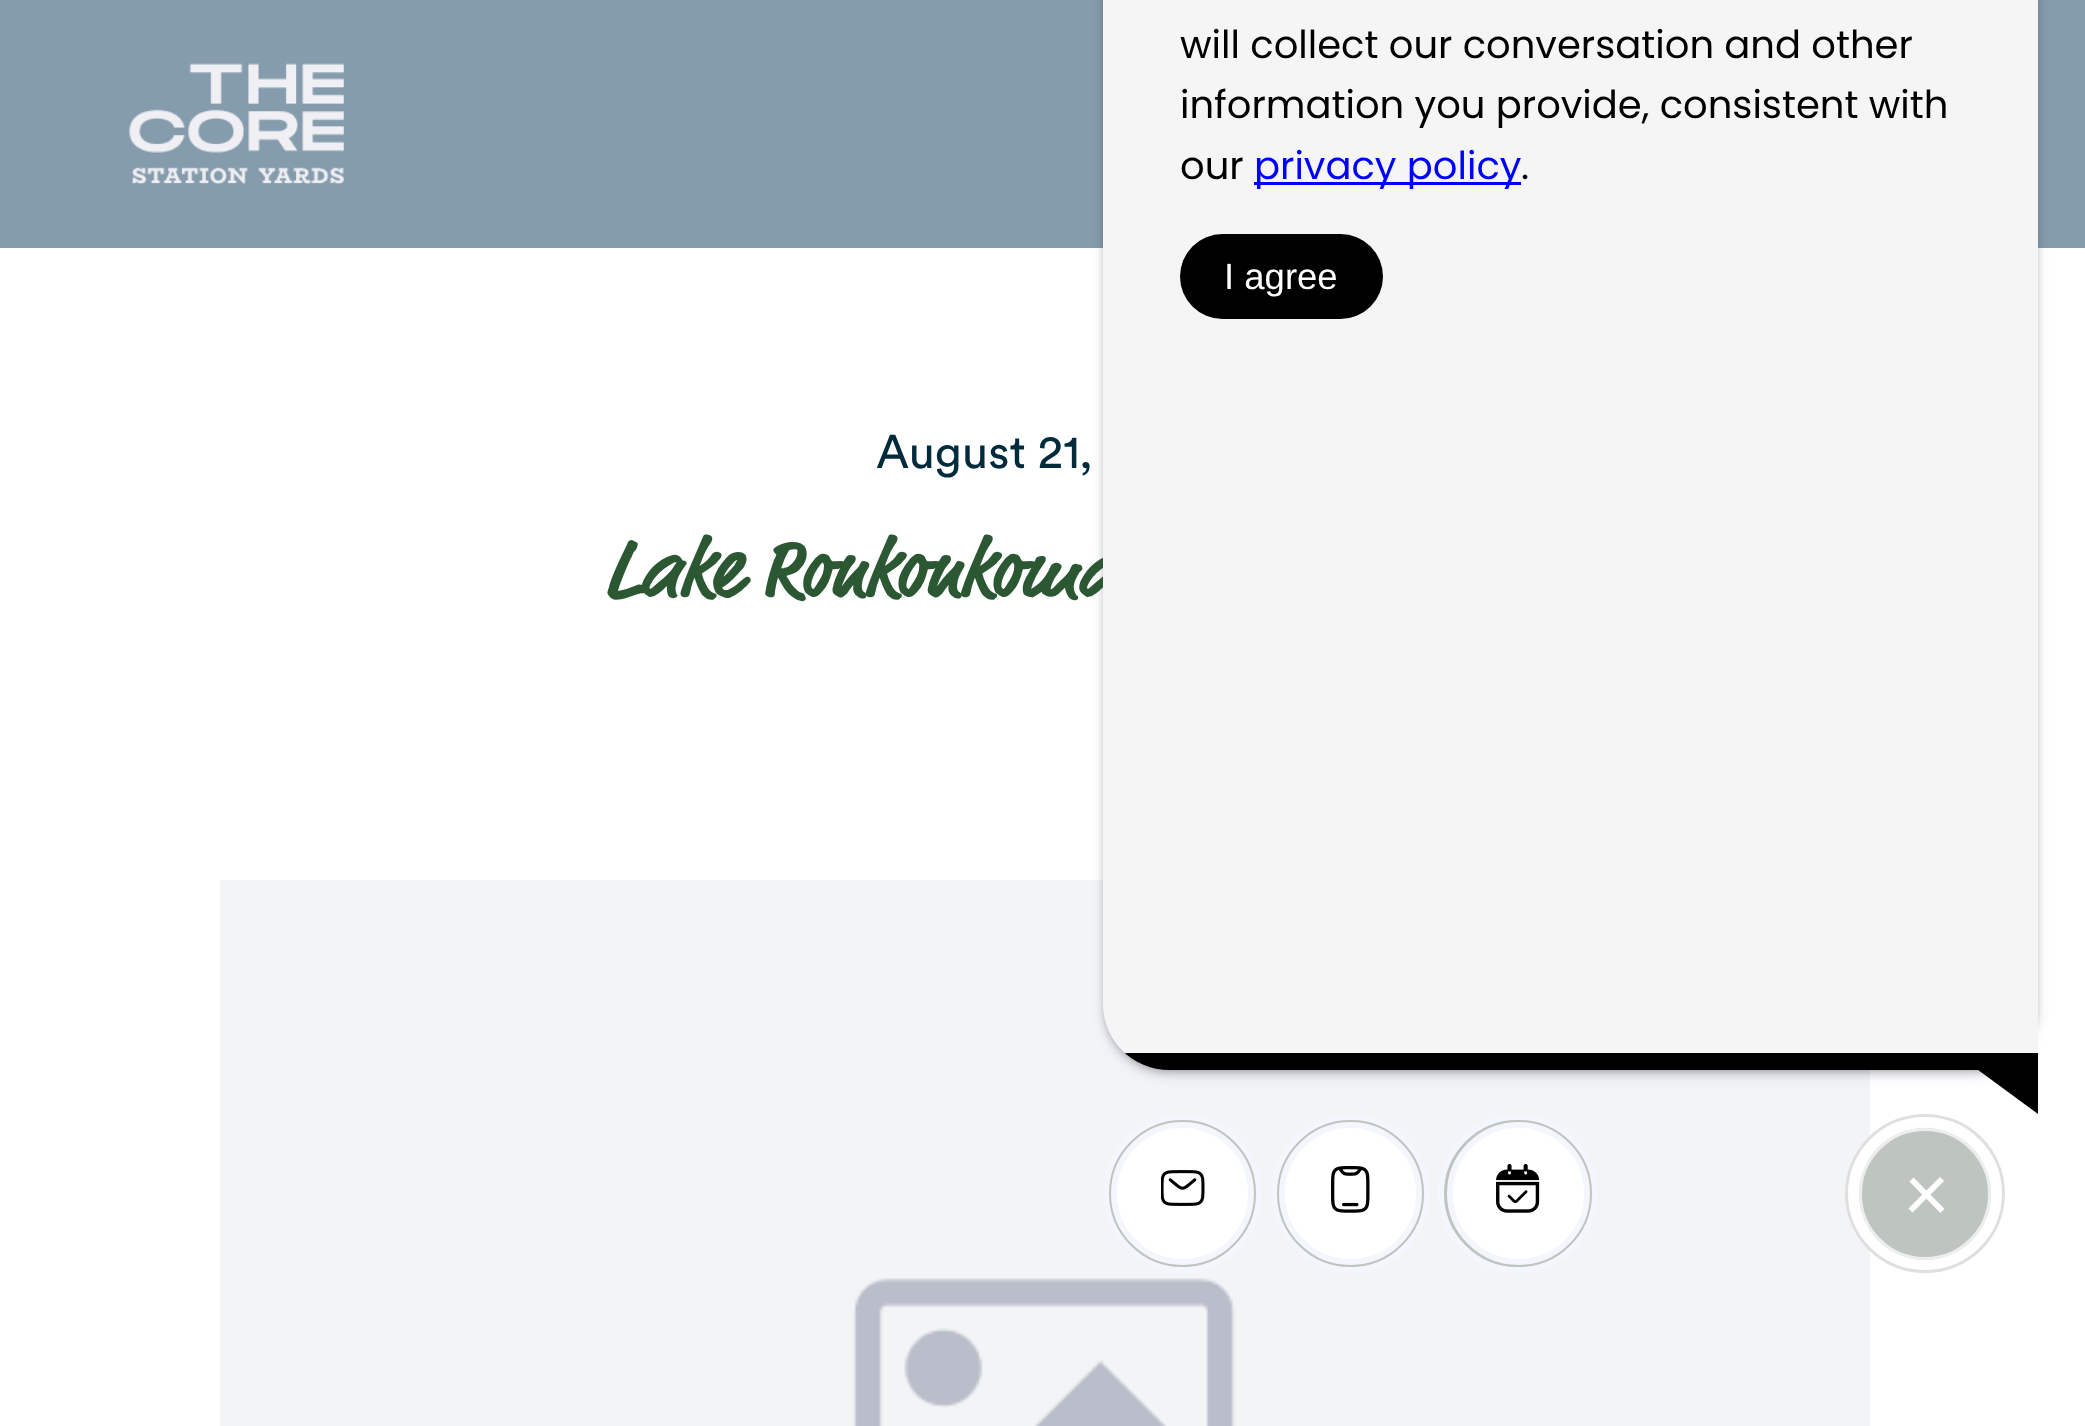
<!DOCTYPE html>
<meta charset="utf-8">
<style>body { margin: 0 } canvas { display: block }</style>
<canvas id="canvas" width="2085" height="1426"></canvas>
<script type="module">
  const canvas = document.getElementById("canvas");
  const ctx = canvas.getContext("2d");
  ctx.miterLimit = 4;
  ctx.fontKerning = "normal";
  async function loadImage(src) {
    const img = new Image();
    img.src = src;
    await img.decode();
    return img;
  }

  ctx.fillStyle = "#ffffff";
  ctx.fillRect(0, 0, 2085, 1426);
  ctx.fillStyle = "#859cad";
  ctx.fillRect(0, 0, 2085, 248);
  ctx.drawImage(await loadImage("img5.png"), 220, 880, 1650, 546);
  ctx.fillStyle = "rgba(0, 0, 0, 0.3)";
  ctx.filter = "blur(4px)";
  ctx.beginPath();
  ctx.roundRect(1106, -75, 929, 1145, 63);
  ctx.fill();
  ctx.filter = "none";
  ctx.fillStyle = "rgba(50, 50, 93, 0.25)";
  ctx.filter = "blur(7px)";
  ctx.beginPath();
  ctx.roundRect(1106, -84, 929, 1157, 63);
  ctx.fill();
  ctx.filter = "none";
  ctx.font = "bold 82.5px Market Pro";
  ctx.fillStyle = "#2b5733";
  ctx.fillText("Lake Ronkonkoma", 602, 597);
  ctx.fillStyle = "#f5f5f5";
  ctx.beginPath();
  ctx.moveTo(1103, -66);
  ctx.lineTo(2038, -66);
  ctx.lineTo(2038, 1070);
  ctx.lineTo(1169, 1070);
  ctx.bezierCurveTo(1132.5, 1070, 1103, 1040.5, 1103, 1004);
  ctx.closePath();
  ctx.fill();
  ctx.save();
  ctx.beginPath();
  ctx.moveTo(1169, -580);
  ctx.lineTo(1972, -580);
  ctx.bezierCurveTo(2008.5, -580, 2038, -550.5, 2038, -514);
  ctx.lineTo(2038, 1070);
  ctx.lineTo(1169, 1070);
  ctx.bezierCurveTo(1132.5, 1070, 1103, 1040.5, 1103, 1004);
  ctx.lineTo(1103, -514);
  ctx.bezierCurveTo(1103, -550.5, 1132.5, -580, 1169, -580);
  ctx.closePath();
  ctx.clip();
  ctx.fillStyle = "#000000";
  ctx.fillRect(1125, 1053, 854, 17);
  ctx.restore();
  ctx.font = "38.5px Poppins";
  ctx.fillStyle = "#000000";
  ctx.fillText("will collect our conversation and other", 1180, 58);
  ctx.fillText("information you provide, consistent with", 1180, 118);
  ctx.fillText("our", 1180, 179);
  ctx.fillStyle = "#0000ff";
  ctx.fillRect(1254, 182, 267, 3);
  ctx.fillText("privacy policy", 1254, 179);
  ctx.fillStyle = "#000000";
  ctx.fillText(".", 1521, 179);
  ctx.beginPath();
  ctx.roundRect(1180, 234, 203, 85, 42.5);
  ctx.fill();
  ctx.font = "36.5px Liberation Sans";
  ctx.fillStyle = "#ffffff";
  ctx.fillText("I agree", 1224, 289);
  ctx.fillStyle = "#000000";
  ctx.beginPath();
  ctx.moveTo(2038, 1053);
  ctx.lineTo(2038, 1114);
  ctx.lineTo(1955, 1053);
  ctx.closePath();
  ctx.fill();
  ctx.fillStyle = "#bec4c0";
  ctx.beginPath();
  ctx.arc(1182.5, 1193.5, 76.5, 0, Math.PI * 2);
  ctx.fill();
  ctx.strokeStyle = "#f3f6fc";
  ctx.lineWidth = 6;
  ctx.stroke();
  ctx.fillStyle = "#ffffff";
  ctx.beginPath();
  ctx.arc(1182.5, 1193.5, 68.5, 0, Math.PI * 2);
  ctx.fill();
  ctx.stroke();
  ctx.drawImage(await loadImage("img1.png"), 1161, 1170, 44, 36);
  ctx.fillStyle = "#bec4c0";
  ctx.beginPath();
  ctx.arc(1350.5, 1193.5, 76.5, 0, Math.PI * 2);
  ctx.fill();
  ctx.stroke();
  ctx.fillStyle = "#ffffff";
  ctx.beginPath();
  ctx.arc(1350.5, 1193.5, 68.5, 0, Math.PI * 2);
  ctx.fill();
  ctx.stroke();
  ctx.drawImage(await loadImage("img2.png"), 1331, 1166, 39, 47);
  ctx.fillStyle = "#bec4c0";
  ctx.beginPath();
  ctx.roundRect(1441, 1117, 154, 153, 76.5);
  ctx.fill();
  ctx.stroke();
  ctx.fillStyle = "#ffffff";
  ctx.beginPath();
  ctx.arc(1518.5, 1193.5, 68.5, 0, Math.PI * 2);
  ctx.fill();
  ctx.stroke();
  ctx.drawImage(await loadImage("img3.png"), 1496, 1164, 44, 49);
  ctx.beginPath();
  ctx.roundRect(1845, 1114, 160, 159, 79.5);
  ctx.fill();
  ctx.beginPath();
  ctx.roundRect(1846.5, 1115.5, 157, 156, 78);
  ctx.strokeStyle = "rgba(95, 95, 95, 0.2)";
  ctx.lineWidth = 3;
  ctx.stroke();
  ctx.fillStyle = "#bec4c0";
  ctx.beginPath();
  ctx.arc(1925, 1194, 66, 0, Math.PI * 2);
  ctx.fill();
  ctx.beginPath();
  ctx.arc(1925, 1194, 64.5, 0, Math.PI * 2);
  ctx.strokeStyle = "rgba(255, 255, 255, 0.7)";
  ctx.stroke();
  ctx.beginPath();
  ctx.moveTo(1910.5, 1210.5);
  ctx.lineTo(1942, 1179);
  ctx.moveTo(1911.5, 1179.5);
  ctx.lineTo(1942.5, 1211);
  ctx.strokeStyle = "#ffffff";
  ctx.lineWidth = 5.9;
  ctx.stroke();
  ctx.drawImage(await loadImage("img4.png"), 129, 63, 215, 122);
  ctx.font = "46.75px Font";
  ctx.fillStyle = "#002b3c";
  ctx.fillText("August 21,", 876, 468);
</script>
